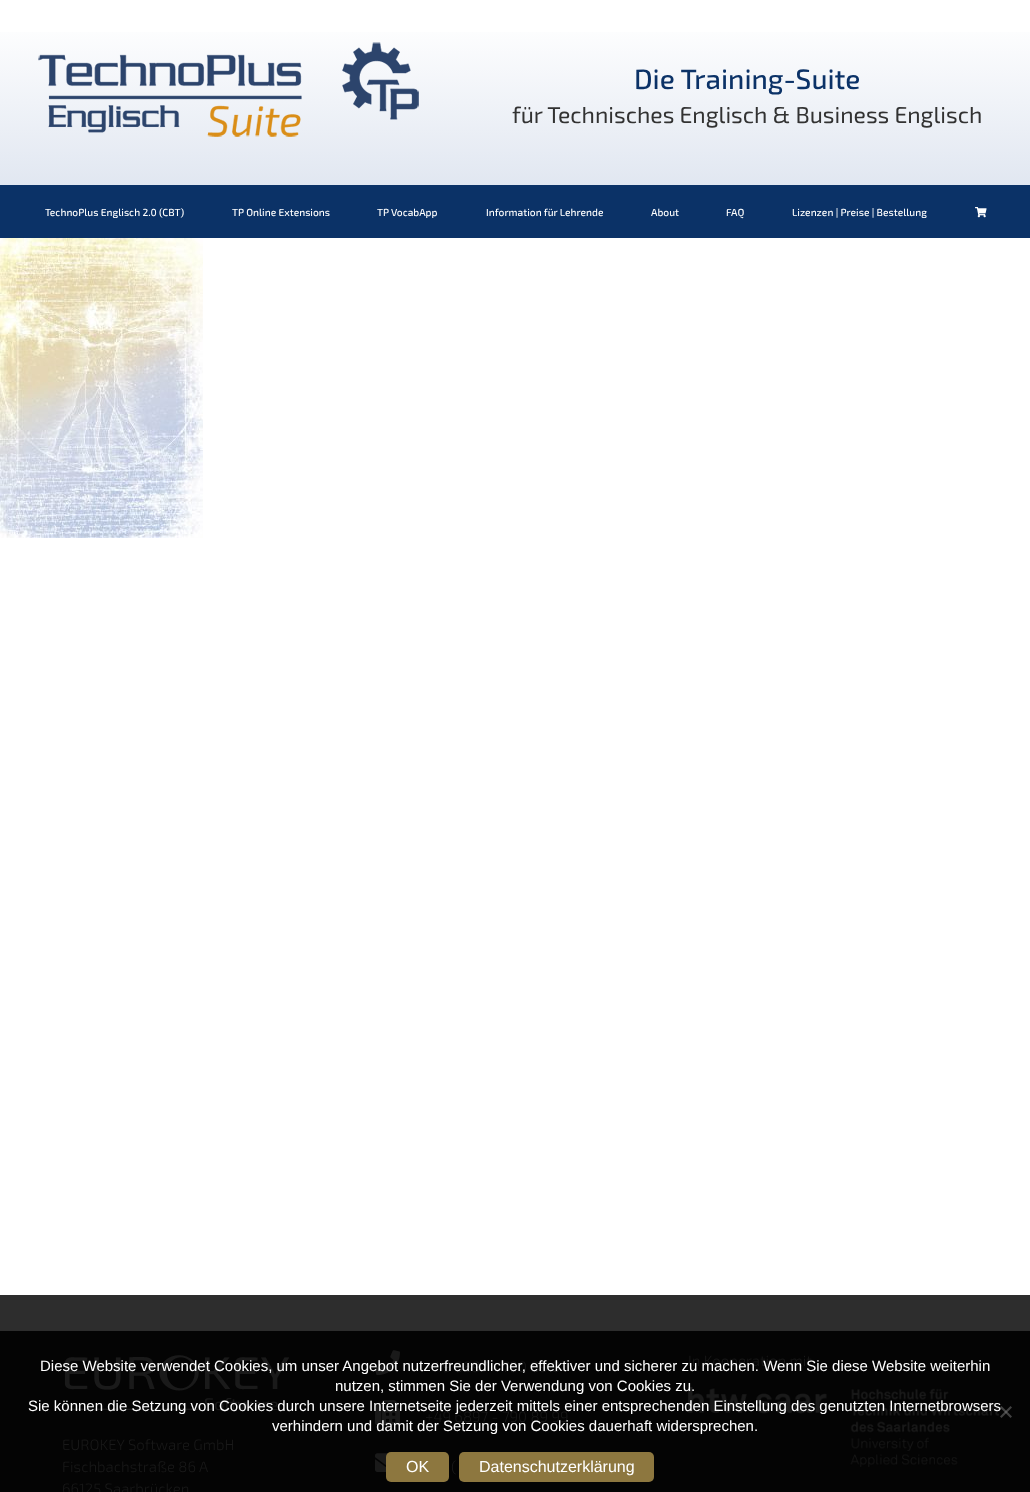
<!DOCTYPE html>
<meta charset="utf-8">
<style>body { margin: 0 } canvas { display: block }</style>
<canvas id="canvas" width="1030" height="1492"></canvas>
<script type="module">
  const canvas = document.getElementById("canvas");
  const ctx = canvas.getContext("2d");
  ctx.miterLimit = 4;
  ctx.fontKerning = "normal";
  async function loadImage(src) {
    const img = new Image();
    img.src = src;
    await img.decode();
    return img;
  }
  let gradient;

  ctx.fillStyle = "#ffffff";
  ctx.fillRect(0, 0, 1030, 1492);
  gradient = ctx.createLinearGradient(515, 0, 515, 185);
  gradient.addColorStop(0.1, "#ffffff");
  gradient.addColorStop(1, "#e1e7f1");
  ctx.fillStyle = gradient;
  ctx.fillRect(0, 32, 1030, 153);
  ctx.drawImage(await loadImage("img1.png"), 38, 42, 381, 95);
  ctx.font = "500 28px 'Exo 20'";
  ctx.fillStyle = "#0b3267";
  ctx.fillText("Die Training-Suite", 634, 89);
  ctx.font = "23px 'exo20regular'";
  ctx.fillStyle = "#323232";
  ctx.fillText("für Technisches Englisch & Business Englisch", 512, 123);
  ctx.fillStyle = "#0b3267";
  ctx.fillRect(0, 185, 1030, 53);
  ctx.font = "500 10.25px 'Exo 20'";
  ctx.fillStyle = "#ffffff";
  ctx.fillText("TechnoPlus Englisch 2.0 (CBT)", 45, 216);
  ctx.fillText("TP Online Extensions", 232, 216);
  ctx.fillText("TP VocabApp", 377, 216);
  ctx.fillText("Information für Lehrende", 486, 216);
  ctx.fillText("About", 651, 216);
  ctx.fillText("FAQ", 726, 216);
  ctx.fillText("Lizenzen | Preise | Bestellung", 792, 216);
  ctx.drawImage(await loadImage("img2.png"), 975, 207, 12, 11);
  ctx.drawImage(await loadImage("img3.png"), 0, 238, 203, 300);
  ctx.fillStyle = "#2d2d2d";
  ctx.fillRect(0, 1295, 1030, 36);
  ctx.fillStyle = "#040404";
  ctx.fillRect(0, 1331, 1030, 161);
  ctx.drawImage(await loadImage("img4.png"), 64, 1355, 225, 56);
  ctx.font = "300 15px 'Exo 20'";
  ctx.fillStyle = "#191919";
  ctx.fillText("EUROKEY Software GmbH", 62, 1450);
  ctx.fillText("Fischbachstraße 86 A", 62, 1472);
  ctx.fillText("66125 Saarbrücken", 62, 1494);
  ctx.drawImage(await loadImage("img5.png"), 375, 1350, 25, 26);
  ctx.fillText("+49 6897 - 790 89 0", 425, 1372);
  ctx.drawImage(await loadImage("img6.png"), 375, 1400, 25, 26);
  ctx.fillText("+49 6897 - 790 89 99", 425, 1422);
  ctx.drawImage(await loadImage("img7.png"), 375, 1453, 13, 19);
  ctx.fillText("(", 451, 1472);
  ctx.fillText("In Kooperation mit", 688, 1366);
  ctx.drawImage(await loadImage("img8.png"), 688, 1387, 311, 80);
  ctx.font = "15px Liberation Sans";
  ctx.fillStyle = "#ffffff";
  ctx.fillText("Diese Website verwendet Cookies, um unser Angebot nutzerfreundlicher, effektiver und sicherer zu machen. Wenn Sie diese Website weiterhin", 40, 1371);
  ctx.fillText("nutzen, stimmen Sie der Verwendung von Cookies zu.", 335, 1391);
  ctx.fillText("Sie können die Setzung von Cookies durch unsere Internetseite jederzeit mittels einer entsprechenden Einstellung des genutzten Internetbrowsers", 28, 1411);
  ctx.fillText("verhindern und damit der Setzung von Cookies dauerhaft widersprechen.", 272, 1431);
  ctx.fillStyle = "#424242";
  ctx.beginPath();
  ctx.moveTo(1010.5, 1406);
  ctx.lineTo(1012, 1407.5);
  ctx.lineTo(1001.5, 1418);
  ctx.lineTo(1000, 1416.5);
  ctx.closePath();
  ctx.fill();
  ctx.fillStyle = "rgba(128, 128, 128, 0.5)";
  ctx.beginPath();
  ctx.moveTo(1000, 1407.5);
  ctx.lineTo(1001.5, 1406);
  ctx.lineTo(1012, 1416.5);
  ctx.lineTo(1010.5, 1418);
  ctx.closePath();
  ctx.fill();
  ctx.fillStyle = "#8d773f";
  ctx.beginPath();
  ctx.roundRect(386, 1452, 63, 30, 5);
  ctx.fill();
  ctx.font = "16px Liberation Sans";
  ctx.fillStyle = "#ffffff";
  ctx.fillText("OK", 406, 1472);
  ctx.fillStyle = "#8d773f";
  ctx.beginPath();
  ctx.roundRect(459, 1452, 195, 30, 5);
  ctx.fill();
  ctx.fillStyle = "#ffffff";
  ctx.fillText("Datenschutzerklärung", 479, 1472);
</script>
